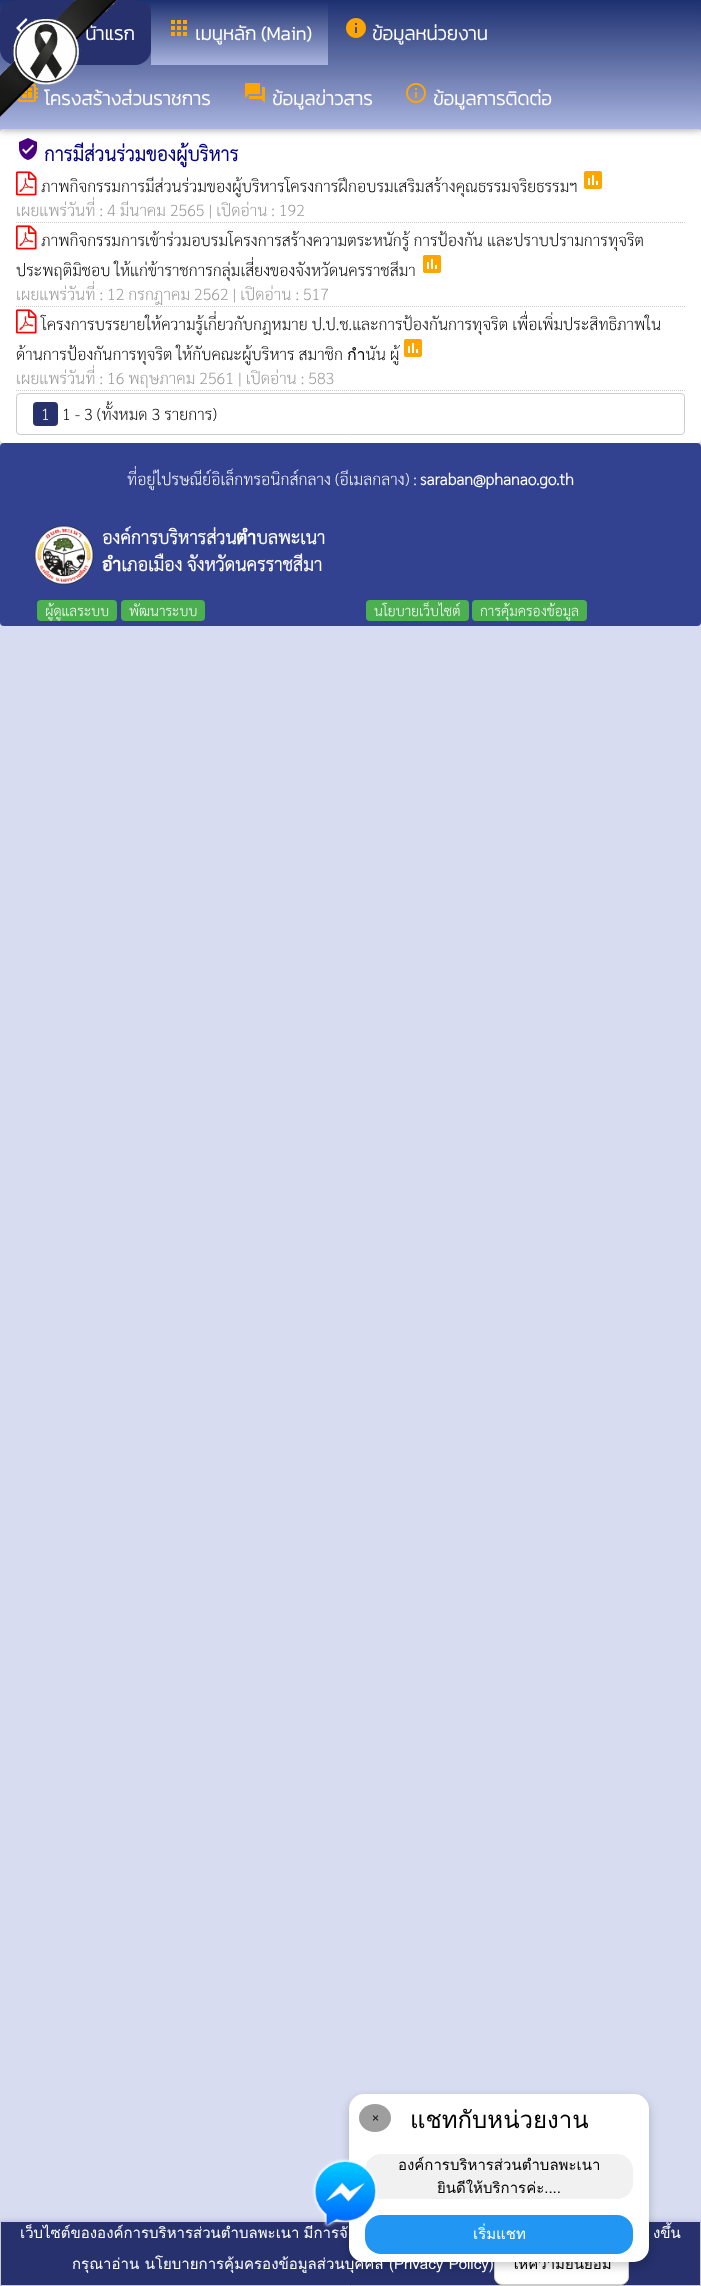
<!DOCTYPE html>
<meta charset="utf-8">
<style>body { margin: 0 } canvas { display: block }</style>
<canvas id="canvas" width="701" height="2286"></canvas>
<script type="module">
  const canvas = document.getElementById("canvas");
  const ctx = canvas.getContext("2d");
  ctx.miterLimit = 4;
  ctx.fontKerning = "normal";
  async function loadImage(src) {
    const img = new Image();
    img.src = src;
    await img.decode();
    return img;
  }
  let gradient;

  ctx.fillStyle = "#d8dcf1";
  ctx.fillRect(0, 0, 701, 2286);
  ctx.fillStyle = "#ffffff";
  ctx.beginPath();
  ctx.roundRect(0, 129, 701, 314, 4);
  ctx.fill();
  ctx.drawImage(await loadImage("img7.png"), 19, 138, 18, 22);
  ctx.fillStyle = "rgba(0, 0, 0, 0.12)";
  ctx.filter = "blur(5px)";
  ctx.beginPath();
  ctx.rect(0, 2, 701, 129);
  ctx.fill();
  ctx.filter = "none";
  ctx.fillStyle = "rgba(0, 0, 0, 0.16)";
  ctx.filter = "blur(2.5px)";
  ctx.beginPath();
  ctx.rect(0, 2, 701, 129);
  ctx.fill();
  ctx.filter = "none";
  gradient = ctx.createLinearGradient(351, 0, 351, 129);
  gradient.addColorStop(0, "#1d3070");
  gradient.addColorStop(1, "#a9b4df");
  ctx.fillStyle = gradient;
  ctx.fillRect(0, 0, 701, 129);
  ctx.fillStyle = "#26316d";
  ctx.beginPath();
  ctx.roundRect(0, 0, 151, 65, 16);
  ctx.fill();
  ctx.fillStyle = "#ffffff";
  ctx.beginPath();
  ctx.moveTo(27.5, 20);
  ctx.lineTo(19.5, 28);
  ctx.lineTo(27.5, 36);
  ctx.lineTo(26, 38);
  ctx.lineTo(16, 28);
  ctx.lineTo(26, 18);
  ctx.closePath();
  ctx.fill();
  ctx.font = "bold 19px Kanit";
  ctx.fillText("น้าแรก", 85, 40);
  ctx.drawImage(await loadImage("img4.png"), 18, 84, 20, 18);
  ctx.fillText("โครงสร้างส่วนราชการ", 44, 105);
  ctx.drawImage(await loadImage("img1.png"), 0, 0, 117, 117);
  gradient = ctx.createLinearGradient(240, 0, 240, 65);
  gradient.addColorStop(0, "#1d3070");
  gradient.addColorStop(1, "#a9b4df");
  ctx.fillStyle = gradient;
  ctx.fillRect(151, 3, 177, 62);
  ctx.drawImage(await loadImage("img2.png"), 171, 20, 16, 16);
  ctx.fillStyle = "#ffffff";
  ctx.fillText("เมนูหลัก (Main)", 195, 40);
  ctx.drawImage(await loadImage("img3.png"), 346, 18, 20, 20);
  ctx.fillText("ข้อมูลหน่วยงาน", 372, 40);
  ctx.drawImage(await loadImage("img5.png"), 245, 83, 20, 20);
  ctx.fillText("ข้อมูลข่าวสาร", 272, 105);
  ctx.drawImage(await loadImage("img6.png"), 406, 83, 20, 20);
  ctx.fillText("ข้อมูลการติดต่อ", 433, 105);
  ctx.font = "bold 19px Sarabun";
  ctx.fillStyle = "#000080";
  ctx.fillText("การมีส่วนร่วมของผู้บริหาร", 44, 161);
  ctx.drawImage(await loadImage("img8.png"), 16, 171, 21, 25);
  ctx.font = "200 16px Sarabun";
  ctx.fillStyle = "#000000";
  ctx.fillText("ภาพกิจกรรมการมีส่วนร่วมของผู้บริหารโครงการฝึกอบรมเสริมสร้างคุณธรรมจริยธรรมฯ", 41, 192);
  ctx.drawImage(await loadImage("img9.png"), 584, 171, 18, 18);
  ctx.beginPath();
  ctx.moveTo(16, 222.5);
  ctx.lineTo(685, 222.5);
  ctx.strokeStyle = "#cccccc";
  ctx.setLineDash([1, 1]);
  ctx.stroke();
  ctx.fillStyle = "#999999";
  ctx.fillText("เผยแพร่วันที่ : 4 มีนาคม 2565 | เปิดอ่าน : 192", 16, 216);
  ctx.drawImage(await loadImage("img8.png"), 16, 225, 21, 25);
  ctx.fillStyle = "#000000";
  ctx.fillText("ภาพกิจกรรมการเข้าร่วมอบรมโครงการสร้างความตระหนักรู้ การป้องกัน และปราบปรามการทุจริต", 41, 246);
  ctx.fillText("ประพฤติมิชอบ ให้แก่ข้าราชการกลุ่มเสี่ยงของจังหวัดนครราชสีมา", 16, 276);
  ctx.drawImage(await loadImage("img9.png"), 423, 255, 18, 18);
  ctx.beginPath();
  ctx.moveTo(16, 306.5);
  ctx.lineTo(685, 306.5);
  ctx.stroke();
  ctx.fillStyle = "#999999";
  ctx.fillText("เผยแพร่วันที่ : 12 กรกฎาคม 2562 | เปิดอ่าน : 517", 16, 300);
  ctx.drawImage(await loadImage("img8.png"), 16, 309, 21, 25);
  ctx.fillStyle = "#000000";
  ctx.fillText("โครงการบรรยายให้ความรู้เกี่ยวกับกฎหมาย ป.ป.ช.และการป้องกันการทุจริต เพื่อเพิ่มประสิทธิภาพใน", 41, 330);
  ctx.fillText("ด้านการป้องกันการทุจริต ให้กับคณะผู้บริหาร สมาชิก กำนัน ผู้", 16, 360);
  ctx.drawImage(await loadImage("img9.png"), 404, 339, 18, 18);
  ctx.beginPath();
  ctx.moveTo(16, 390.5);
  ctx.lineTo(685, 390.5);
  ctx.stroke();
  ctx.fillStyle = "#999999";
  ctx.fillText("เผยแพร่วันที่ : 16 พฤษภาคม 2561 | เปิดอ่าน : 583", 16, 384);
  ctx.beginPath();
  ctx.roundRect(16.5, 393.5, 668, 41, 3.5);
  ctx.setLineDash([]);
  ctx.stroke();
  ctx.fillStyle = "#26316d";
  ctx.beginPath();
  ctx.roundRect(33, 402, 25, 24, 4);
  ctx.fill();
  ctx.fillStyle = "#ffffff";
  ctx.fillText("1", 41, 420);
  ctx.fillStyle = "#000000";
  ctx.fillText("1 - 3 (ทั้งหมด 3 รายการ)", 62, 420);
  ctx.fillStyle = "#334191";
  ctx.beginPath();
  ctx.roundRect(0, 443, 701, 183, 4);
  ctx.fill();
  ctx.fillStyle = "#ffffff";
  ctx.fillText("ที่อยู่ไปรษณีย์อิเล็กทรอนิกส์กลาง (อีเมลกลาง) :", 127, 485);
  ctx.font = "bold 16px Sarabun";
  ctx.fillText("saraban@phanao.go.th", 420, 485);
  ctx.drawImage(await loadImage("img10.png"), 34, 525, 60, 60);
  ctx.font = "bold 18px Sarabun";
  ctx.fillText("องค์การบริหารส่วนตำบลพะเนา", 102, 544);
  ctx.save();
  ctx.beginPath();
  ctx.rect(102, 523, 567, 54);
  ctx.clip();
  ctx.fillText("อำเภอเมือง จังหวัดนครราชสีมา", 102, 571);
  ctx.restore();
  ctx.fillStyle = "#4caf50";
  ctx.beginPath();
  ctx.roundRect(37, 600, 80, 21, 4);
  ctx.fill();
  ctx.font = "200 14px Sarabun";
  ctx.fillStyle = "#ffffff";
  ctx.fillText("ผู้ดูแลระบบ", 45, 616);
  ctx.fillStyle = "#4caf50";
  ctx.beginPath();
  ctx.roundRect(121, 600, 84, 21, 4);
  ctx.fill();
  ctx.fillStyle = "#ffffff";
  ctx.fillText("พัฒนาระบบ", 129, 616);
  ctx.fillStyle = "#4caf50";
  ctx.beginPath();
  ctx.roundRect(366, 600, 103, 21, 4);
  ctx.fill();
  ctx.fillStyle = "#ffffff";
  ctx.fillText("นโยบายเว็บไซต์", 374, 616);
  ctx.fillStyle = "#4caf50";
  ctx.beginPath();
  ctx.roundRect(472, 600, 115, 21, 4);
  ctx.fill();
  ctx.fillStyle = "#ffffff";
  ctx.fillText("การคุ้มครองข้อมูล", 480, 616);
  ctx.fillStyle = "rgba(0, 0, 0, 0.12)";
  ctx.filter = "blur(5px)";
  ctx.beginPath();
  ctx.rect(0, 2223, 701, 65);
  ctx.fill();
  ctx.filter = "none";
  ctx.fillStyle = "rgba(0, 0, 0, 0.16)";
  ctx.filter = "blur(2.5px)";
  ctx.beginPath();
  ctx.rect(0, 2223, 701, 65);
  ctx.fill();
  ctx.filter = "none";
  ctx.fillStyle = "#26316d";
  ctx.beginPath();
  ctx.rect(0.5, 2221.5, 700, 64);
  ctx.fill();
  ctx.stroke();
  ctx.fillStyle = "#ffffff";
  ctx.beginPath();
  ctx.roundRect(494.5, 2244.5, 134, 40, 7.5);
  ctx.fill();
  ctx.stroke();
  ctx.fillStyle = "rgba(0, 0, 0, 0.2)";
  ctx.filter = "blur(5px)";
  ctx.beginPath();
  ctx.roundRect(349, 2098, 300, 168, 15);
  ctx.fill();
  ctx.filter = "none";
  ctx.font = "15px Loma";
  ctx.fillStyle = "#000000";
  ctx.fillText("ให้ความยินยอม", 511, 2269);
  ctx.fillStyle = "#ffffff";
  ctx.beginPath();
  ctx.roundRect(349, 2094, 300, 168, 15);
  ctx.fill();
  ctx.fillStyle = "#9e9e9e";
  ctx.beginPath();
  ctx.ellipse(375, 2118, 16, 14, 0, 0, Math.PI * 2);
  ctx.fill();
  ctx.font = "12px Liberation Sans";
  ctx.fillStyle = "#000000";
  ctx.fillText("×", 372, 2122);
  ctx.font = "24px Loma";
  ctx.fillText("แชทกับหน่วยงาน", 410, 2128);
  ctx.fillStyle = "#f1f1f1";
  ctx.beginPath();
  ctx.roundRect(365, 2154, 268, 45, 16);
  ctx.fill();
  ctx.font = "15px Loma";
  ctx.fillStyle = "#000000";
  ctx.fillText("องค์การบริหารส่วนตำบลพะเนา", 398, 2170);
  ctx.fillText("ยินดีให้บริการค่ะ....", 437, 2193);
  ctx.fillStyle = "#2196f3";
  ctx.beginPath();
  ctx.roundRect(365, 2215, 268, 39, 16);
  ctx.fill();
  ctx.wordSpacing = "-1px";
  ctx.fillStyle = "#ffffff";
  ctx.fillText("เว็บไซต์ขององค์การบริหารส่วนตำบลพะเนา มีการจั", 20, 2238);
  ctx.drawImage(await loadImage("img11.png"), 312, 2158, 65, 69);
  ctx.wordSpacing = "0px";
  ctx.fillText("เริ่มแชท", 473, 2239);
  ctx.wordSpacing = "-1px";
  ctx.fillText("งขึ้น", 653, 2238);
  ctx.wordSpacing = "0.5px";
  ctx.fillText("กรุณาอ่าน นโยบายการคุ้มครองข้อมูลส่วนบุคคล (Privacy Policy)", 72, 2269);
</script>
